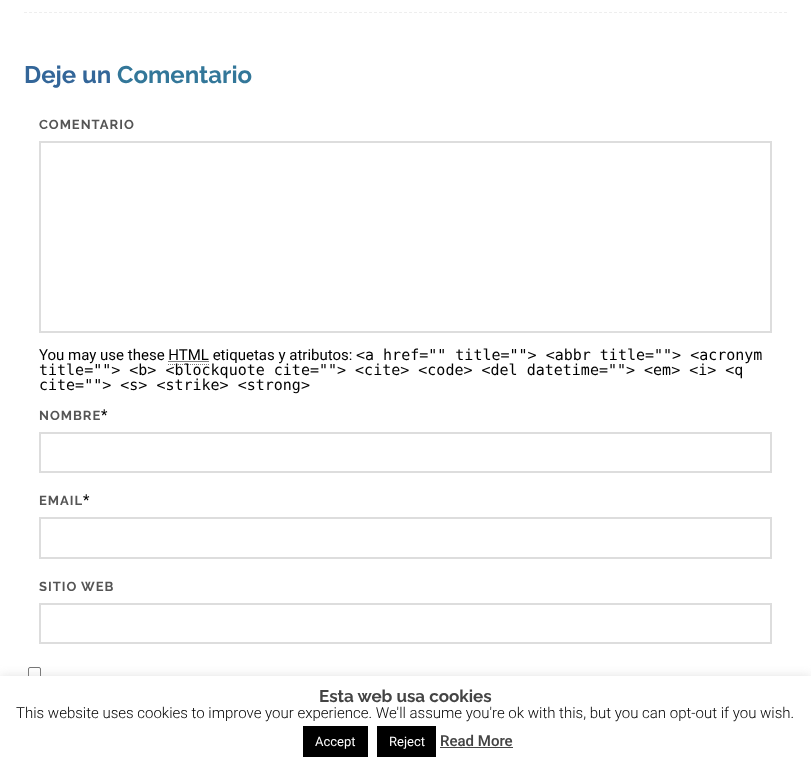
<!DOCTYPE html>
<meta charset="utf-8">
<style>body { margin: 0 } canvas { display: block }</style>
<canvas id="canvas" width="811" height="769"></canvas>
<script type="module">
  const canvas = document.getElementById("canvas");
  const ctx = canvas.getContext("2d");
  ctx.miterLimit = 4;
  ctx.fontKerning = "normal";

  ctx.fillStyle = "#ffffff";
  ctx.fillRect(0, 0, 811, 769);
  ctx.beginPath();
  ctx.moveTo(24, 12.5);
  ctx.lineTo(787, 12.5);
  ctx.strokeStyle = "#eeeeee";
  ctx.setLineDash([3, 2]);
  ctx.stroke();
  ctx.font = "bold 24px Raleway";
  ctx.fillStyle = "#336699";
  ctx.fillText("Deje un", 24, 83);
  ctx.fillStyle = "#337799";
  ctx.fillText("Comentario", 117, 83);
  ctx.letterSpacing = "1px";
  ctx.font = "bold 13px Raleway";
  ctx.fillStyle = "#555555";
  ctx.fillText("COMENTARIO", 39, 129);
  ctx.strokeStyle = "#dddddd";
  ctx.lineWidth = 2;
  ctx.setLineDash([]);
  ctx.strokeRect(40, 142, 731, 190);
  ctx.letterSpacing = "0px";
  ctx.font = "15px Roboto";
  ctx.fillStyle = "#000000";
  ctx.fillText("You may use these HTML etiquetas y atributos:", 39, 360);
  ctx.font = "15px DejaVu Sans Mono";
  ctx.fillText("<a href=\"\" title=\"\"> <abbr title=\"\"> <acronym", 356, 360);
  ctx.beginPath();
  ctx.moveTo(168.5, 361.5);
  ctx.lineTo(209, 361.5);
  ctx.strokeStyle = "#000000";
  ctx.lineWidth = 1;
  ctx.setLineDash([1, 1]);
  ctx.stroke();
  ctx.beginPath();
  ctx.moveTo(168, 364.5);
  ctx.lineTo(209, 364.5);
  ctx.strokeStyle = "#777777";
  ctx.stroke();
  ctx.fillText("title=\"\"> <b> <blockquote cite=\"\"> <cite> <code> <del datetime=\"\"> <em> <i> <q", 39, 375);
  ctx.fillText("cite=\"\"> <s> <strike> <strong>", 39, 390);
  ctx.letterSpacing = "1px";
  ctx.font = "bold 13px Raleway";
  ctx.fillStyle = "#555555";
  ctx.fillText("NOMBRE", 39, 420);
  ctx.letterSpacing = "0px";
  ctx.font = "15px Roboto";
  ctx.fillStyle = "#000000";
  ctx.fillText("*", 101, 420);
  ctx.strokeStyle = "#dddddd";
  ctx.lineWidth = 2;
  ctx.setLineDash([]);
  ctx.strokeRect(40, 433, 731, 39);
  ctx.letterSpacing = "1px";
  ctx.font = "bold 13px Raleway";
  ctx.fillStyle = "#555555";
  ctx.fillText("EMAIL", 39, 505);
  ctx.letterSpacing = "0px";
  ctx.font = "15px Roboto";
  ctx.fillStyle = "#000000";
  ctx.fillText("*", 83, 505);
  ctx.strokeRect(40, 518, 731, 40);
  ctx.letterSpacing = "1px";
  ctx.font = "bold 13px Raleway";
  ctx.fillStyle = "#555555";
  ctx.fillText("SITIO WEB", 39, 591);
  ctx.strokeRect(40, 604, 731, 39);
  ctx.beginPath();
  ctx.roundRect(28.5, 667.5, 12, 12, 1.5);
  ctx.strokeStyle = "#767676";
  ctx.lineWidth = 1;
  ctx.stroke();
  ctx.fillStyle = "rgba(172, 171, 171, 0.3)";
  ctx.filter = "blur(5px)";
  ctx.beginPath();
  ctx.rect(0, 675, 811, 93);
  ctx.fill();
  ctx.filter = "none";
  ctx.fillStyle = "#ffffff";
  ctx.fillRect(0, 676, 811, 93);
  ctx.letterSpacing = "0px";
  ctx.font = "bold 17px Raleway";
  ctx.fillStyle = "#444444";
  ctx.fillText("Esta web usa cookies", 319, 702);
  ctx.font = "300 15px Roboto";
  ctx.fillStyle = "#000000";
  ctx.fillText("This website uses cookies to improve your experience. We'll assume you're ok with this, but you can opt-out if you wish.", 16, 718);
  ctx.fillRect(303, 726, 65, 31);
  ctx.font = "13px Roboto";
  ctx.fillStyle = "#ffffff";
  ctx.fillText("Accept", 315, 746);
  ctx.fillStyle = "#000000";
  ctx.fillRect(377, 726, 59, 31);
  ctx.fillStyle = "#ffffff";
  ctx.fillText("Reject", 389, 746);
  ctx.font = "500 15px Roboto";
  ctx.fillStyle = "#444444";
  ctx.fillText("Read More", 440, 746);
  ctx.fillRect(440, 747, 73, 1);
</script>
